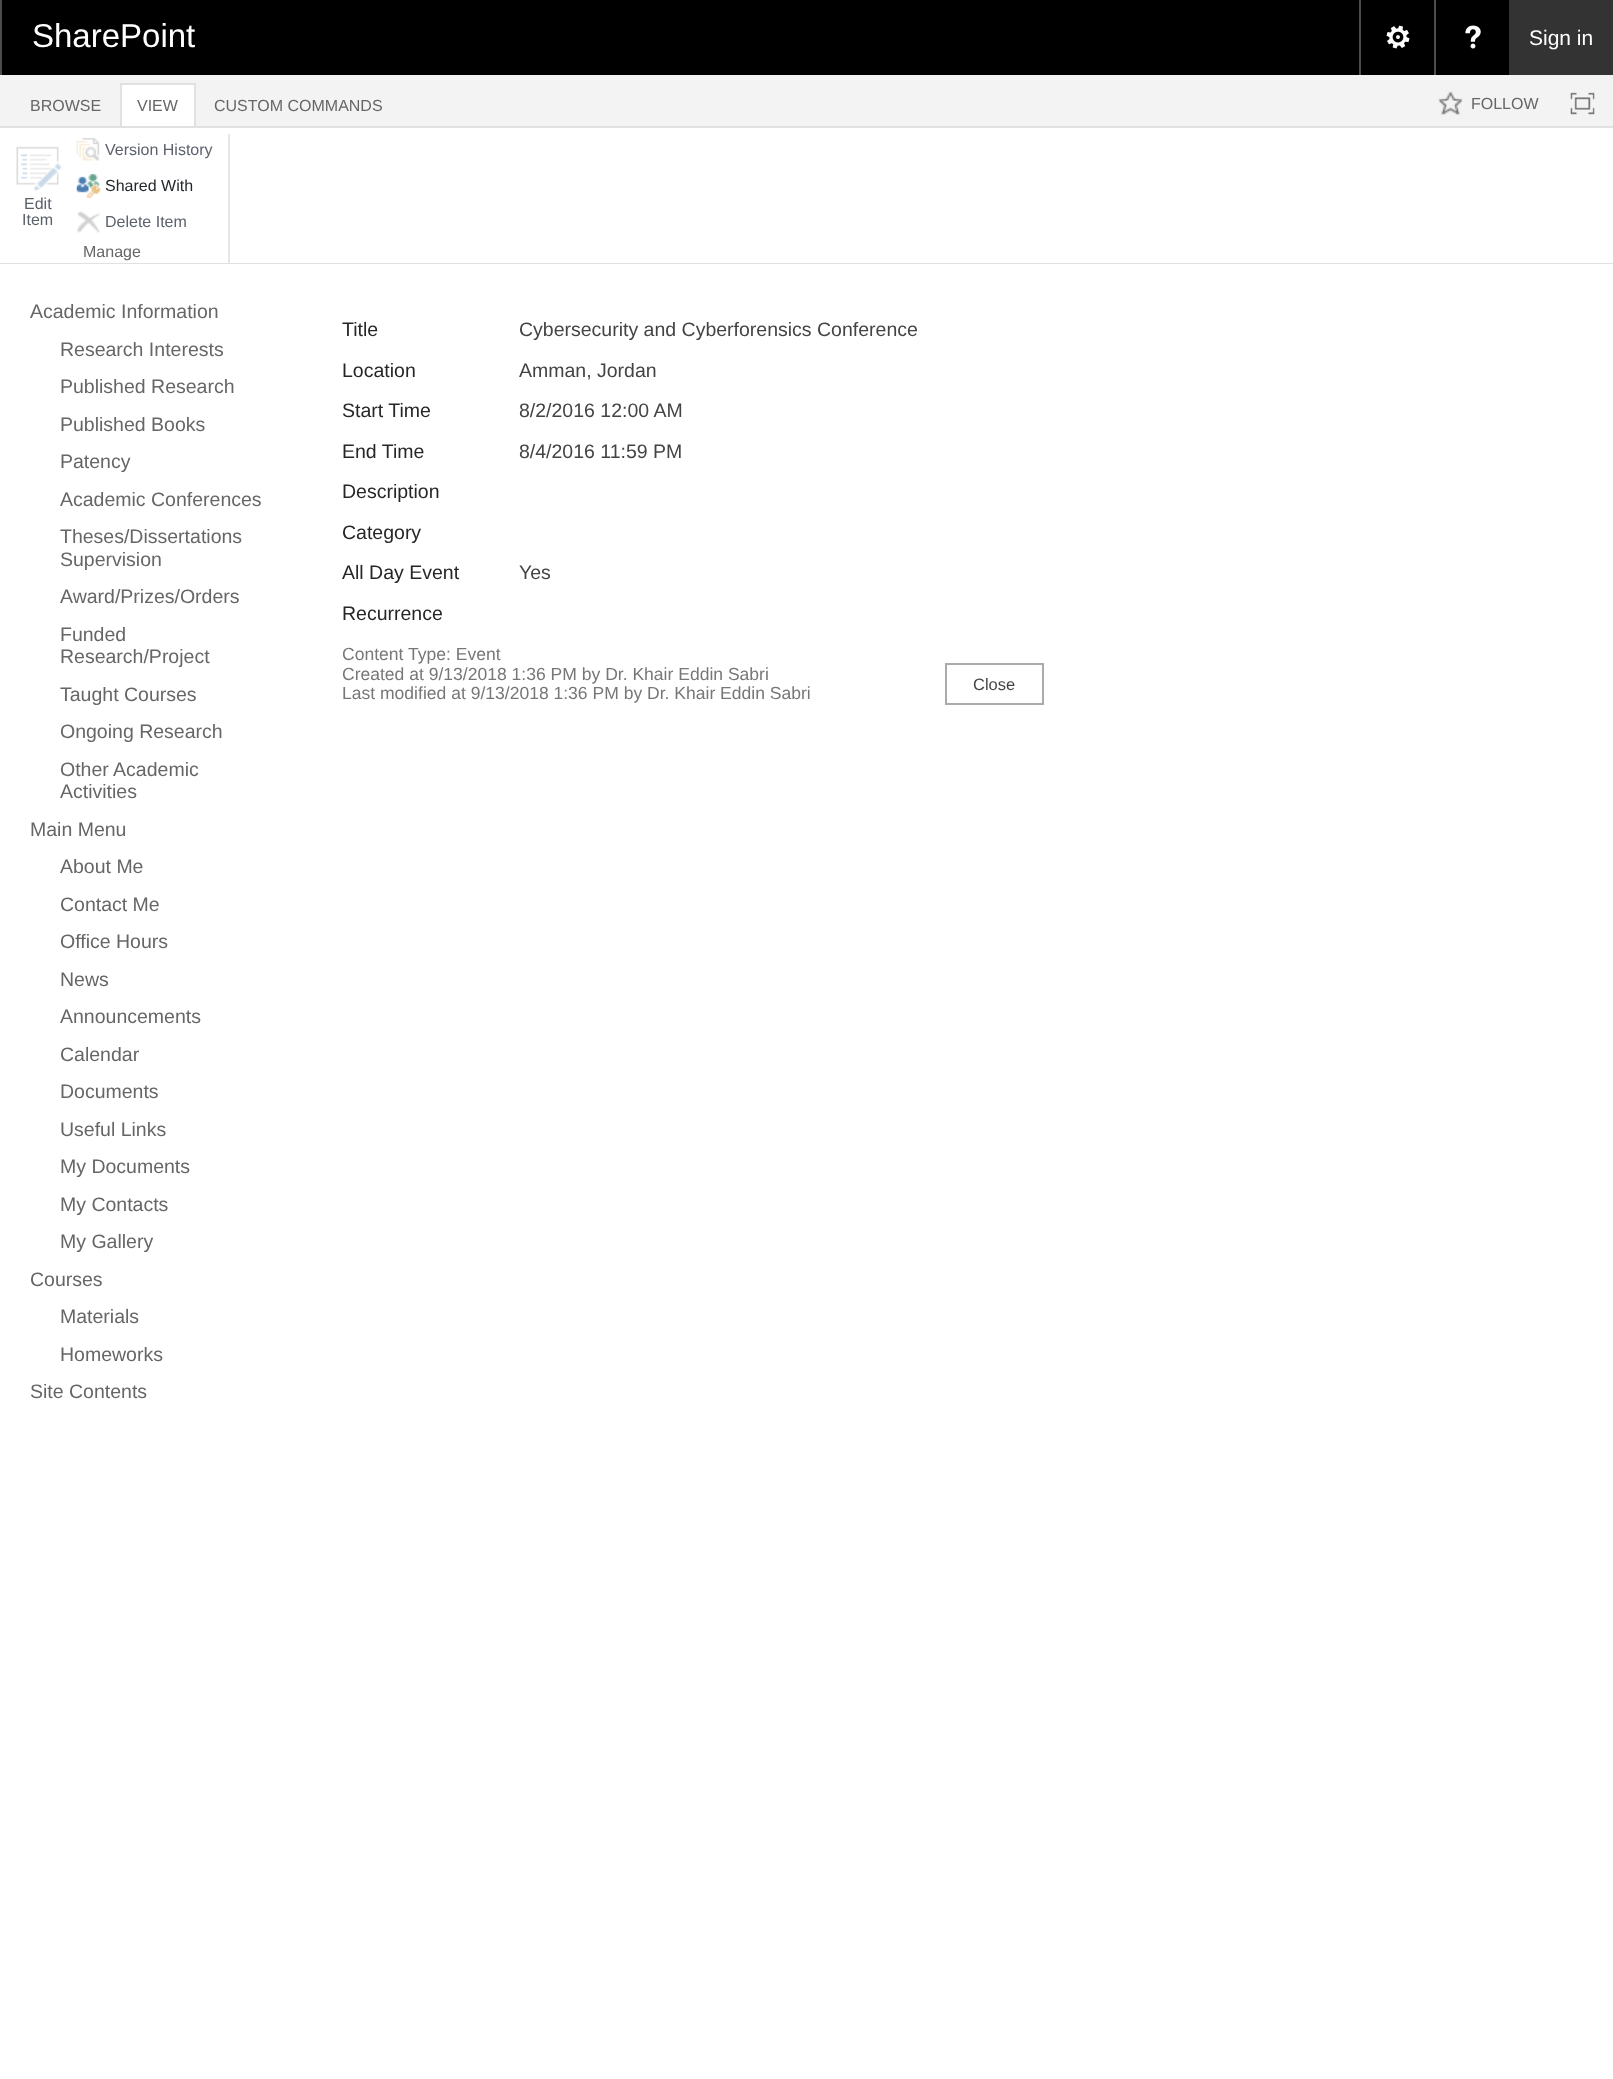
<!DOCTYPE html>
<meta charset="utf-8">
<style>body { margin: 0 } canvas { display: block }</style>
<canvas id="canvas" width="1613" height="2079"></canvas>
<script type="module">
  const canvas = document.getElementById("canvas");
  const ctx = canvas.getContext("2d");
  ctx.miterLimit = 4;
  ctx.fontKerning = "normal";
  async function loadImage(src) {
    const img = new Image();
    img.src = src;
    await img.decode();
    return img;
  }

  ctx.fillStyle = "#ffffff";
  ctx.fillRect(0, 0, 1613, 2079);
  ctx.fillStyle = "#000000";
  ctx.fillRect(2, 0, 1507, 75);
  ctx.fillStyle = "#4d4d4d";
  ctx.fillRect(0, 0, 2, 75);
  ctx.font = "33px Liberation Sans";
  ctx.fillStyle = "#ffffff";
  ctx.fillText("SharePoint", 32, 47);
  ctx.fillStyle = "#4d4d4d";
  ctx.fillRect(1359, 0, 2, 75);
  ctx.drawImage(await loadImage("img1.png"), 1386, 25, 24, 24);
  ctx.fillRect(1434, 0, 2, 75);
  ctx.drawImage(await loadImage("img2.png"), 1465, 25, 16, 24);
  ctx.fillStyle = "#333333";
  ctx.fillRect(1509, 0, 104, 75);
  ctx.font = "21px Liberation Sans";
  ctx.fillStyle = "#ffffff";
  ctx.fillText("Sign in", 1529, 45);
  ctx.fillStyle = "#f3f3f3";
  ctx.fillRect(0, 75, 1613, 51);
  ctx.fillStyle = "#e1e1e1";
  ctx.fillRect(0, 126, 1613, 2);
  ctx.font = "16px Liberation Sans";
  ctx.fillStyle = "#666666";
  ctx.fillText("BROWSE", 30, 111);
  ctx.fillStyle = "#ffffff";
  ctx.fillRect(122, 85, 72, 41);
  ctx.fillStyle = "#e1e1e1";
  ctx.fillRect(120, 83, 75, 2);
  ctx.fillRect(194, 83, 2, 43);
  ctx.fillRect(120, 83, 2, 43);
  ctx.fillStyle = "#666666";
  ctx.fillText("VIEW", 137, 111);
  ctx.fillText("CUSTOM COMMANDS", 214, 111);
  ctx.drawImage(await loadImage("img3.png"), 1438, 91, 25, 24);
  ctx.fillText("FOLLOW", 1471, 109);
  ctx.drawImage(await loadImage("img4.png"), 1570, 92, 25, 23);
  ctx.fillStyle = "#e1e1e1";
  ctx.fillRect(0, 263, 1613, 1);
  ctx.drawImage(await loadImage("img5.png"), 16, 146, 46, 45);
  ctx.fillStyle = "#5b626c";
  ctx.fillText("Edit", 24, 209);
  ctx.fillText("Item", 22, 225);
  ctx.drawImage(await loadImage("img6.png"), 76, 138, 24, 23);
  ctx.fillText("Version History", 105, 155);
  ctx.drawImage(await loadImage("img7.png"), 76, 174, 25, 24);
  ctx.fillStyle = "#23272c";
  ctx.fillText("Shared With", 105, 191);
  ctx.drawImage(await loadImage("img8.png"), 76, 211, 24, 22);
  ctx.fillStyle = "#5b626c";
  ctx.fillText("Delete Item", 105, 227);
  ctx.fillStyle = "#666666";
  ctx.fillText("Manage", 83, 257);
  ctx.fillStyle = "#e7e7e8";
  ctx.fillRect(228, 134, 2, 129);
  ctx.font = "19.5px Liberation Sans";
  ctx.fillStyle = "#666666";
  ctx.fillText("Academic Information", 30, 318);
  ctx.fillText("Research Interests", 60, 356);
  ctx.fillText("Published Research", 60, 393);
  ctx.fillText("Published Books", 60, 431);
  ctx.fillText("Patency", 60, 468);
  ctx.fillText("Academic Conferences", 60, 506);
  ctx.fillText("Theses/Dissertations", 60, 543);
  ctx.fillText("Supervision", 60, 566);
  ctx.fillText("Award/Prizes/Orders", 60, 603);
  ctx.fillText("Funded", 60, 641);
  ctx.fillText("Research/Project", 60, 663);
  ctx.fillText("Taught Courses", 60, 701);
  ctx.fillText("Ongoing Research", 60, 738);
  ctx.fillText("Other Academic", 60, 776);
  ctx.fillText("Activities", 60, 798);
  ctx.fillText("Main Menu", 30, 836);
  ctx.fillText("About Me", 60, 873);
  ctx.fillText("Contact Me", 60, 911);
  ctx.fillText("Office Hours", 60, 948);
  ctx.fillText("News", 60, 986);
  ctx.fillText("Announcements", 60, 1023);
  ctx.fillText("Calendar", 60, 1061);
  ctx.fillText("Documents", 60, 1098);
  ctx.fillText("Useful Links", 60, 1136);
  ctx.fillText("My Documents", 60, 1173);
  ctx.fillText("My Contacts", 60, 1211);
  ctx.fillText("My Gallery", 60, 1248);
  ctx.fillText("Courses", 30, 1286);
  ctx.fillText("Materials", 60, 1323);
  ctx.fillText("Homeworks", 60, 1361);
  ctx.fillText("Site Contents", 30, 1398);
  ctx.fillStyle = "#262626";
  ctx.fillText("Title", 342, 336);
  ctx.fillStyle = "#444444";
  ctx.fillText("Cybersecurity and Cyberforensics Conference", 519, 336);
  ctx.fillStyle = "#262626";
  ctx.fillText("Location", 342, 377);
  ctx.fillStyle = "#444444";
  ctx.fillText("Amman, Jordan", 519, 377);
  ctx.fillStyle = "#262626";
  ctx.fillText("Start Time", 342, 417);
  ctx.fillStyle = "#444444";
  ctx.fillText("8/2/2016 12:00 AM", 519, 417);
  ctx.fillStyle = "#262626";
  ctx.fillText("End Time", 342, 458);
  ctx.fillStyle = "#444444";
  ctx.fillText("8/4/2016 11:59 PM", 519, 458);
  ctx.fillStyle = "#262626";
  ctx.fillText("Description", 342, 498);
  ctx.fillText("Category", 342, 539);
  ctx.fillText("All Day Event", 342, 579);
  ctx.fillStyle = "#444444";
  ctx.fillText("Yes", 519, 579);
  ctx.fillStyle = "#262626";
  ctx.fillText("Recurrence", 342, 620);
  ctx.font = "17.55px Liberation Sans";
  ctx.fillStyle = "#777777";
  ctx.fillText("Content Type: Event", 342, 660);
  ctx.fillText("Created at 9/13/2018 1:36 PM by Dr. Khair Eddin Sabri", 342, 680);
  ctx.fillText("Last modified at 9/13/2018 1:36 PM by Dr. Khair Eddin Sabri", 342, 699);
  ctx.strokeStyle = "#ababab";
  ctx.lineWidth = 2;
  ctx.strokeRect(946, 664, 97, 40);
  ctx.font = "16.5px Liberation Sans";
  ctx.fillStyle = "#444444";
  ctx.fillText("Close", 973, 690);
</script>
